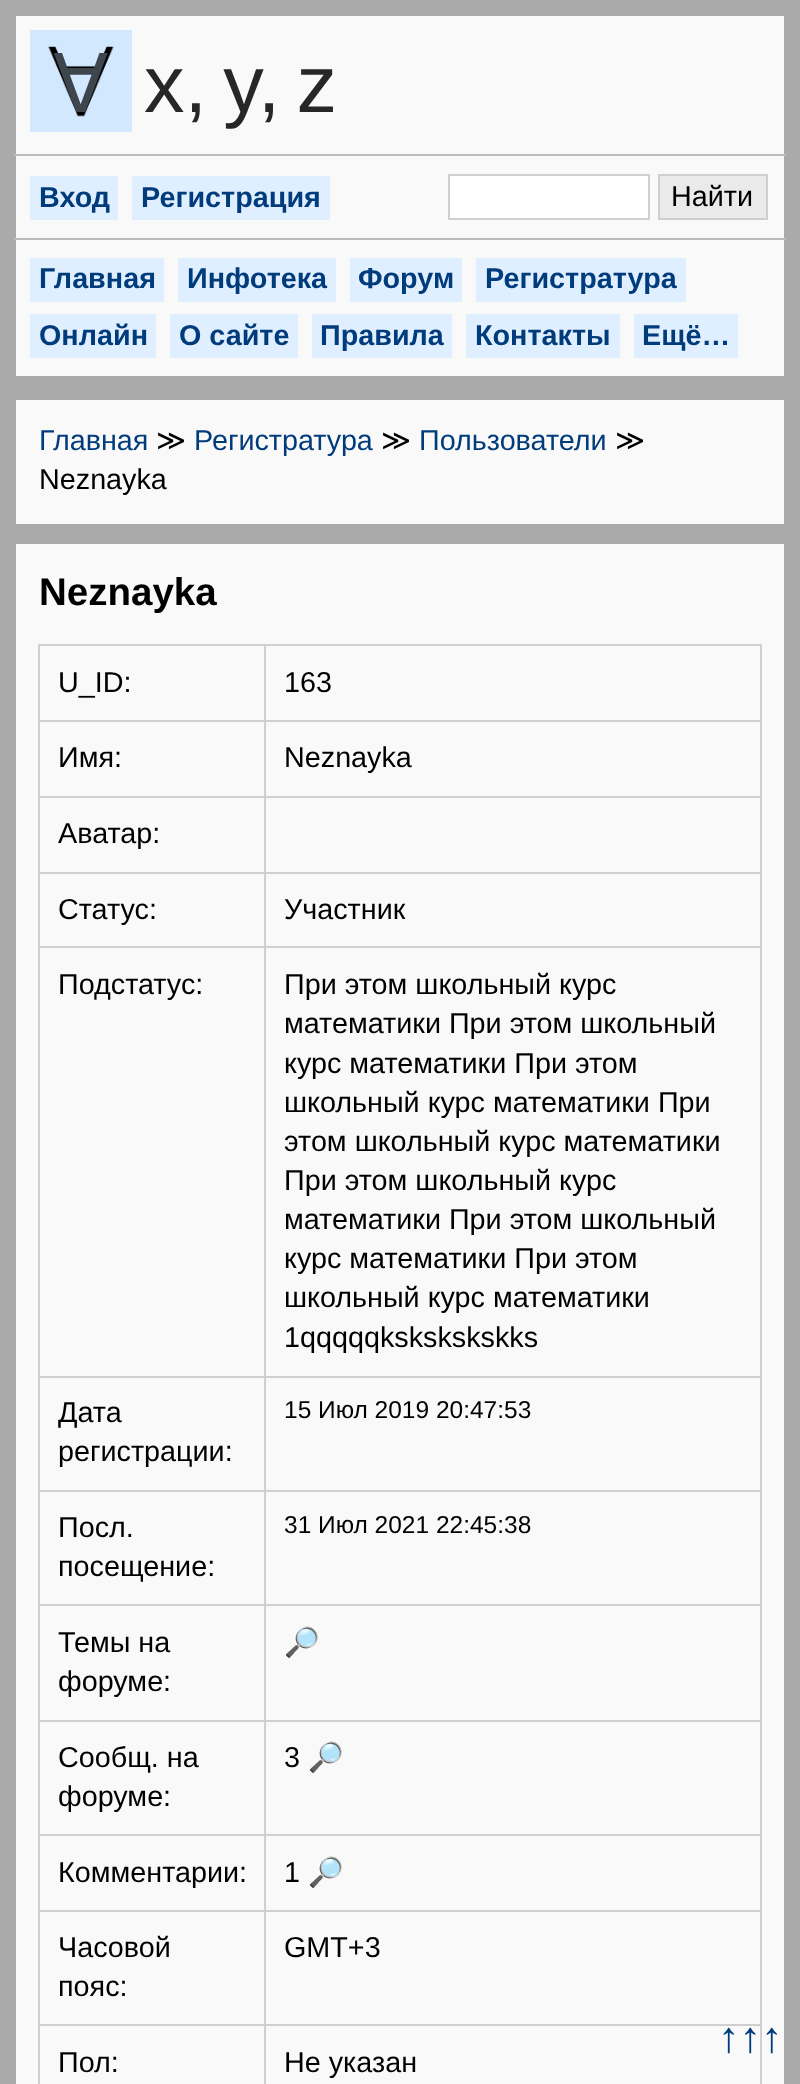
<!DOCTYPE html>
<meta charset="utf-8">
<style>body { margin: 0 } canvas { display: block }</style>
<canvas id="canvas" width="800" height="2084"></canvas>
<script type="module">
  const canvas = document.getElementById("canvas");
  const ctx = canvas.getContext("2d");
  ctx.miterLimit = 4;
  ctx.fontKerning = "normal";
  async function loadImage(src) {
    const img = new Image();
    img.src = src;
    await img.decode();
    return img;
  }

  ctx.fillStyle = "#aaaaaa";
  ctx.fillRect(0, 0, 800, 2084);
  ctx.fillStyle = "#f9f9f9";
  ctx.fillRect(16, 16, 768, 360);
  ctx.drawImage(await loadImage("img1.png"), 30, 30, 102, 102);
  ctx.font = "81px DejaVu Sans";
  ctx.fillStyle = "#3e454c";
  ctx.fillText("∀", 53, 112);
  ctx.font = "81px Liberation Sans";
  ctx.fillStyle = "#272727";
  ctx.fillText("x, y, z", 144, 112);
  ctx.fillStyle = "#e0efff";
  ctx.fillRect(30, 176, 88, 44);
  ctx.font = "bold 28.75px Liberation Sans";
  ctx.fillStyle = "#003c7c";
  ctx.fillText("Вход", 39, 207);
  ctx.fillStyle = "#e0efff";
  ctx.fillRect(132, 176, 198, 44);
  ctx.fillStyle = "#003c7c";
  ctx.fillText("Регистрация", 141, 207);
  ctx.fillStyle = "#bbbbbb";
  ctx.fillRect(14, 154, 772, 2);
  ctx.fillStyle = "#ffffff";
  ctx.beginPath();
  ctx.rect(449, 175, 200, 44);
  ctx.fill();
  ctx.strokeStyle = "#cfcfcf";
  ctx.lineWidth = 2;
  ctx.stroke();
  ctx.fillStyle = "#eaeaea";
  ctx.beginPath();
  ctx.rect(659, 175, 108, 44);
  ctx.fill();
  ctx.stroke();
  ctx.font = "28.75px Liberation Sans";
  ctx.fillStyle = "#000000";
  ctx.fillText("Найти", 671, 206);
  ctx.fillStyle = "#bbbbbb";
  ctx.fillRect(14, 238, 772, 2);
  ctx.fillStyle = "#e0efff";
  ctx.fillRect(30, 258, 134, 44);
  ctx.font = "bold 28.75px Liberation Sans";
  ctx.fillStyle = "#003c7c";
  ctx.fillText("Главная", 39, 288);
  ctx.fillStyle = "#e0efff";
  ctx.fillRect(178, 258, 158, 44);
  ctx.fillStyle = "#003c7c";
  ctx.fillText("Инфотека", 187, 288);
  ctx.fillStyle = "#e0efff";
  ctx.fillRect(350, 258, 112, 44);
  ctx.fillStyle = "#003c7c";
  ctx.fillText("Форум", 358, 288);
  ctx.fillStyle = "#e0efff";
  ctx.fillRect(476, 258, 210, 44);
  ctx.fillStyle = "#003c7c";
  ctx.fillText("Регистратура", 485, 288);
  ctx.fillStyle = "#e0efff";
  ctx.fillRect(30, 314, 126, 44);
  ctx.fillStyle = "#003c7c";
  ctx.fillText("Онлайн", 39, 345);
  ctx.fillStyle = "#e0efff";
  ctx.fillRect(170, 314, 128, 44);
  ctx.fillStyle = "#003c7c";
  ctx.fillText("О сайте", 179, 345);
  ctx.fillStyle = "#e0efff";
  ctx.fillRect(312, 314, 140, 44);
  ctx.fillStyle = "#003c7c";
  ctx.fillText("Правила", 320, 345);
  ctx.fillStyle = "#e0efff";
  ctx.fillRect(466, 314, 154, 44);
  ctx.fillStyle = "#003c7c";
  ctx.fillText("Контакты", 475, 345);
  ctx.fillStyle = "#e0efff";
  ctx.fillRect(634, 314, 104, 44);
  ctx.fillStyle = "#003c7c";
  ctx.fillText("Ещё…", 642, 345);
  ctx.fillStyle = "#f9f9f9";
  ctx.fillRect(16, 400, 768, 124);
  ctx.font = "28.75px Liberation Sans";
  ctx.fillStyle = "#003c7c";
  ctx.fillText("Главная", 39, 450);
  ctx.font = "28.75px DejaVu Sans";
  ctx.fillStyle = "#000000";
  ctx.fillText("≫", 156, 450);
  ctx.font = "28.75px Liberation Sans";
  ctx.fillStyle = "#003c7c";
  ctx.fillText("Регистратура", 194, 450);
  ctx.font = "28.75px DejaVu Sans";
  ctx.fillStyle = "#000000";
  ctx.fillText("≫", 381, 450);
  ctx.font = "28.75px Liberation Sans";
  ctx.fillStyle = "#003c7c";
  ctx.fillText("Пользователи", 419, 450);
  ctx.font = "28.75px DejaVu Sans";
  ctx.fillStyle = "#000000";
  ctx.fillText("≫", 615, 450);
  ctx.font = "28.75px Liberation Sans";
  ctx.fillText("Neznayka", 39, 489);
  ctx.fillStyle = "#f9f9f9";
  ctx.fillRect(16, 544, 768, 1540);
  ctx.font = "bold 38.5px Liberation Sans";
  ctx.fillStyle = "#000000";
  ctx.fillText("Neznayka", 39, 605);
  ctx.fillStyle = "#cfcfcf";
  ctx.fillRect(38, 644, 724, 2);
  ctx.fillRect(760, 644, 2, 1440);
  ctx.fillRect(38, 644, 2, 1440);
  ctx.font = "28.75px Liberation Sans";
  ctx.fillStyle = "#000000";
  ctx.fillText("U_ID:", 58, 692);
  ctx.fillStyle = "#cfcfcf";
  ctx.fillRect(264, 720, 498, 2);
  ctx.fillRect(264, 796, 498, 2);
  ctx.fillRect(264, 872, 498, 2);
  ctx.fillRect(264, 946, 498, 2);
  ctx.fillRect(264, 1376, 498, 2);
  ctx.fillRect(264, 1490, 498, 2);
  ctx.fillRect(264, 1604, 498, 2);
  ctx.fillRect(264, 1720, 498, 2);
  ctx.fillRect(264, 1834, 498, 2);
  ctx.fillRect(264, 1910, 498, 2);
  ctx.fillRect(264, 2024, 498, 2);
  ctx.fillRect(264, 2024, 2, 60);
  ctx.fillRect(38, 2024, 228, 2);
  ctx.fillRect(264, 1910, 2, 116);
  ctx.fillRect(38, 1910, 228, 2);
  ctx.fillRect(264, 1834, 2, 78);
  ctx.fillRect(38, 1834, 228, 2);
  ctx.fillRect(264, 1720, 2, 116);
  ctx.fillRect(38, 1720, 228, 2);
  ctx.fillRect(264, 1604, 2, 118);
  ctx.fillRect(38, 1604, 228, 2);
  ctx.fillRect(264, 1490, 2, 116);
  ctx.fillRect(38, 1490, 228, 2);
  ctx.fillRect(264, 1376, 2, 116);
  ctx.fillRect(38, 1376, 228, 2);
  ctx.fillRect(264, 946, 2, 432);
  ctx.fillRect(38, 946, 228, 2);
  ctx.fillRect(264, 872, 2, 76);
  ctx.fillRect(38, 872, 228, 2);
  ctx.fillRect(264, 796, 2, 78);
  ctx.fillRect(38, 796, 228, 2);
  ctx.fillRect(264, 720, 2, 78);
  ctx.fillRect(38, 720, 228, 2);
  ctx.fillRect(264, 644, 2, 78);
  ctx.fillStyle = "#000000";
  ctx.fillText("163", 284, 692);
  ctx.fillText("Имя:", 58, 767);
  ctx.fillText("Neznayka", 284, 767);
  ctx.fillText("Аватар:", 58, 843);
  ctx.fillText("Статус:", 58, 919);
  ctx.fillText("Участник", 284, 919);
  ctx.fillText("Подстатус:", 58, 994);
  ctx.fillText("При этом школьный курс", 284, 994);
  ctx.fillText("математики При этом школьный", 284, 1033);
  ctx.fillText("курс математики При этом", 284, 1073);
  ctx.fillText("школьный курс математики При", 284, 1112);
  ctx.fillText("этом школьный курс математики", 284, 1151);
  ctx.fillText("При этом школьный курс", 284, 1190);
  ctx.fillText("математики При этом школьный", 284, 1229);
  ctx.fillText("курс математики При этом", 284, 1268);
  ctx.fillText("школьный курс математики", 284, 1307);
  ctx.fillText("1qqqqqkskskskskks", 284, 1347);
  ctx.fillText("Дата", 58, 1422);
  ctx.fillText("регистрации:", 58, 1461);
  ctx.font = "24.5px Liberation Sans";
  ctx.fillText("15 Июл 2019 20:47:53", 284, 1418);
  ctx.font = "28.75px Liberation Sans";
  ctx.fillText("Посл.", 58, 1537);
  ctx.fillText("посещение:", 58, 1576);
  ctx.font = "24.5px Liberation Sans";
  ctx.fillText("31 Июл 2021 22:45:38", 284, 1533);
  ctx.font = "28.75px Liberation Sans";
  ctx.fillText("Темы на", 58, 1652);
  ctx.fillText("форуме:", 58, 1691);
  ctx.font = "28.75px Noto Color Emoji";
  ctx.fillStyle = "#003c7c";
  ctx.fillText("🔎", 284, 1652);
  ctx.font = "28.75px Liberation Sans";
  ctx.fillStyle = "#000000";
  ctx.fillText("Сообщ. на", 58, 1767);
  ctx.fillText("форуме:", 58, 1806);
  ctx.fillText("3", 284, 1767);
  ctx.font = "28.75px Noto Color Emoji";
  ctx.fillStyle = "#003c7c";
  ctx.fillText("🔎", 308, 1767);
  ctx.font = "28.75px Liberation Sans";
  ctx.fillStyle = "#000000";
  ctx.fillText("Комментарии:", 58, 1882);
  ctx.fillText("1", 284, 1882);
  ctx.font = "28.75px Noto Color Emoji";
  ctx.fillStyle = "#003c7c";
  ctx.fillText("🔎", 308, 1882);
  ctx.font = "28.75px Liberation Sans";
  ctx.fillStyle = "#000000";
  ctx.fillText("Часовой", 58, 1957);
  ctx.fillText("пояс:", 58, 1996);
  ctx.fillText("GMT+3", 284, 1957);
  ctx.fillText("Пол:", 58, 2072);
  ctx.fillText("Не указан", 284, 2072);
  ctx.font = "43px Liberation Sans";
  ctx.fillStyle = "#003c7c";
  ctx.fillText("↑↑↑", 718, 2052);
</script>
